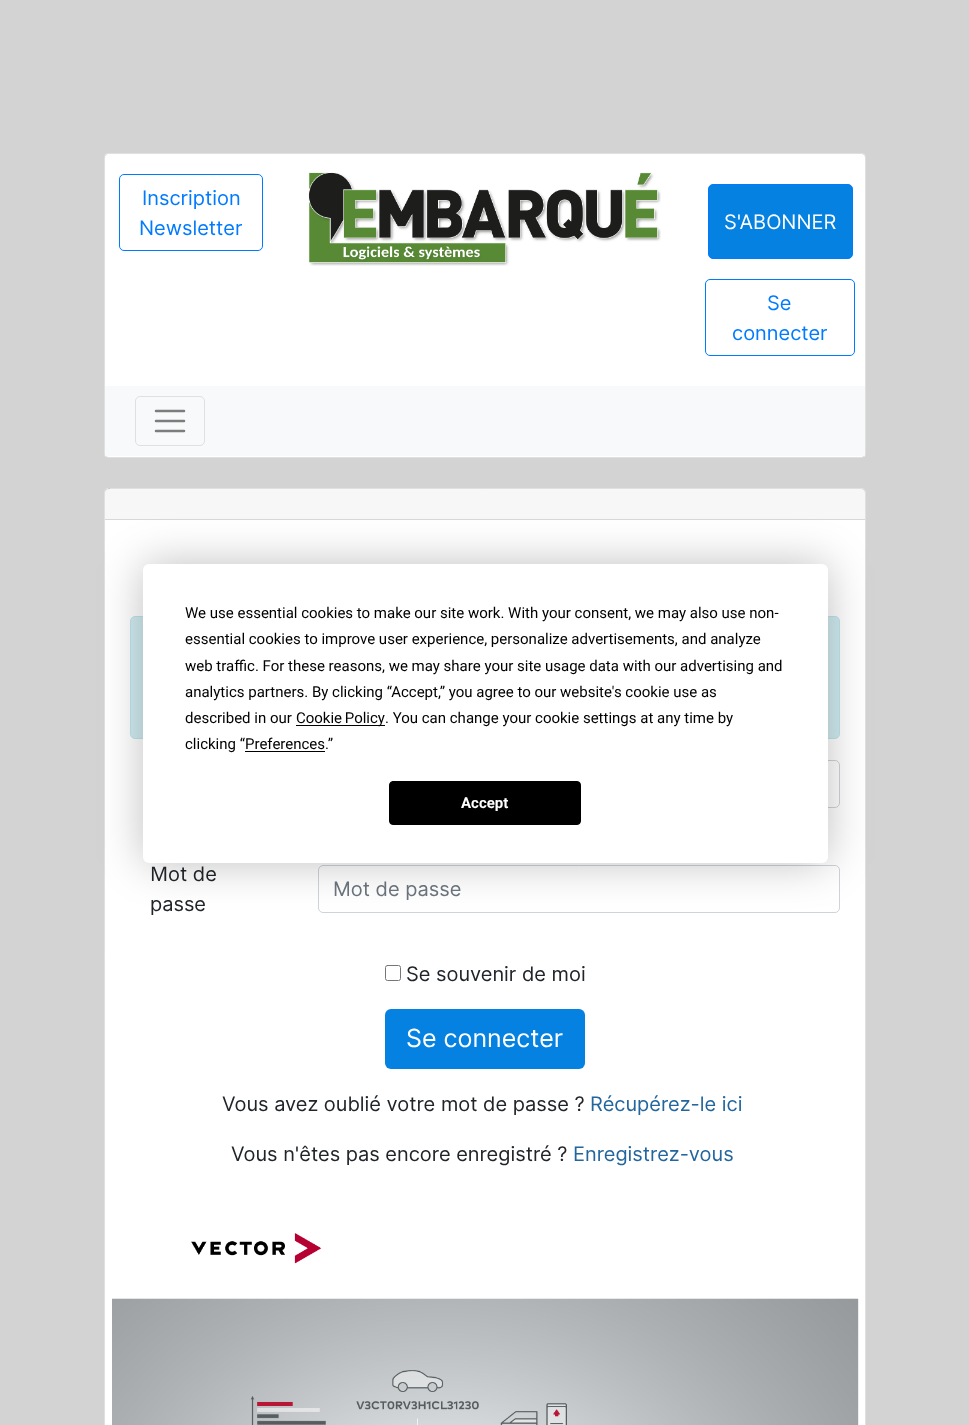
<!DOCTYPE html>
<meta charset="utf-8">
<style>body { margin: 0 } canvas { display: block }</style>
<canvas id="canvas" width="969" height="1425"></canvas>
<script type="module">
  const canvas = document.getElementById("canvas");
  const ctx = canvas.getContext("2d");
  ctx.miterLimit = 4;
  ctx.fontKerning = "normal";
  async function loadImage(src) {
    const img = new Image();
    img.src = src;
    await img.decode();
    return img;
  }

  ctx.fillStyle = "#d3d3d3";
  ctx.fillRect(0, 0, 969, 1425);
  ctx.fillStyle = "#ffffff";
  ctx.beginPath();
  ctx.roundRect(104, 153, 762, 305, 5);
  ctx.fill();
  ctx.beginPath();
  ctx.roundRect(104.5, 153.5, 761, 304, 4.5);
  ctx.strokeStyle = "rgba(0, 0, 0, 0.12)";
  ctx.stroke();
  ctx.beginPath();
  ctx.roundRect(119.5, 174.5, 143, 76, 4.5);
  ctx.strokeStyle = "#007bff";
  ctx.stroke();
  ctx.font = "20px Inter";
  ctx.fillStyle = "#007bff";
  ctx.fillText("Inscription", 142, 205);
  ctx.fillText("Newsletter", 139, 235);
  ctx.drawImage(await loadImage("img1.png"), 308, 172, 353, 94);
  ctx.fillStyle = "#0481e1";
  ctx.beginPath();
  ctx.roundRect(708.5, 184.5, 144, 74, 4.5);
  ctx.fill();
  ctx.stroke();
  ctx.fillStyle = "#ffffff";
  ctx.fillText("S'ABONNER", 724, 229);
  ctx.beginPath();
  ctx.roundRect(705.5, 279.5, 149, 76, 4.5);
  ctx.stroke();
  ctx.fillStyle = "#007bff";
  ctx.fillText("Se", 767, 310);
  ctx.fillText("connecter", 732, 340);
  ctx.fillStyle = "#f8f9fa";
  ctx.fillRect(105, 386, 760, 70);
  ctx.beginPath();
  ctx.roundRect(135.5, 396.5, 69, 49, 4.5);
  ctx.strokeStyle = "#dfe0e1";
  ctx.stroke();
  ctx.beginPath();
  ctx.moveTo(156, 411);
  ctx.lineTo(184, 411);
  ctx.moveTo(156, 421);
  ctx.lineTo(184, 421);
  ctx.moveTo(156, 431);
  ctx.lineTo(184, 431);
  ctx.strokeStyle = "#7c7d7d";
  ctx.lineWidth = 2.5;
  ctx.lineCap = "round";
  ctx.stroke();
  ctx.fillStyle = "#ffffff";
  ctx.beginPath();
  ctx.roundRect(104, 488, 762, 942, 5);
  ctx.fill();
  ctx.beginPath();
  ctx.roundRect(104.5, 488.5, 761, 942, 4.5);
  ctx.strokeStyle = "rgba(0, 0, 0, 0.12)";
  ctx.lineWidth = 1;
  ctx.stroke();
  ctx.fillStyle = "rgba(0, 0, 0, 0.03)";
  ctx.fillRect(105, 489, 760, 30);
  ctx.fillStyle = "#d8d8d8";
  ctx.fillRect(105, 519, 760, 1);
  ctx.fillStyle = "#d1ecf1";
  ctx.beginPath();
  ctx.roundRect(130.5, 616.5, 709, 122, 4.5);
  ctx.fill();
  ctx.strokeStyle = "#bee5eb";
  ctx.stroke();
  ctx.beginPath();
  ctx.roundRect(318.5, 760.5, 521, 47, 4.5);
  ctx.strokeStyle = "#ced4da";
  ctx.stroke();
  ctx.font = "20px Noto Sans";
  ctx.fillStyle = "#212529";
  ctx.fillText("M", 150, 881);
  ctx.font = "20px Inter";
  ctx.fillText("ot de", 168, 881);
  ctx.fillText("passe", 150, 911);
  ctx.beginPath();
  ctx.roundRect(318.5, 865.5, 521, 47, 4.5);
  ctx.stroke();
  ctx.fillStyle = "#6c757d";
  ctx.fillText("Mot de passe", 333, 896);
  ctx.beginPath();
  ctx.roundRect(385.5, 965.5, 15, 15, 2);
  ctx.strokeStyle = "#767676";
  ctx.stroke();
  ctx.fillStyle = "#212529";
  ctx.fillText("Se souvenir de moi", 406, 981);
  ctx.fillStyle = "#0481e1";
  ctx.beginPath();
  ctx.roundRect(385, 1009, 200, 60, 6);
  ctx.fill();
  ctx.font = "25px Inter";
  ctx.fillStyle = "#ffffff";
  ctx.fillText("Se connecter", 406, 1047);
  ctx.font = "20px Inter";
  ctx.fillStyle = "#212529";
  ctx.fillText("Vous avez oublié votre mot de passe ?", 222, 1111);
  ctx.fillStyle = "#23669e";
  ctx.fillText("Récupérez-le ici", 590, 1111);
  ctx.fillStyle = "#212529";
  ctx.fillText("Vous n'êtes pas encore enregistré ?", 231, 1161);
  ctx.fillStyle = "#23669e";
  ctx.fillText("Enregistrez-vous", 573, 1161);
  ctx.drawImage(await loadImage("img2.png"), 112, 1233, 747, 192);
  ctx.fillStyle = "rgba(0, 0, 0, 0.25)";
  ctx.filter = "blur(22px)";
  ctx.beginPath();
  ctx.roundRect(143, 564, 685, 299, 6);
  ctx.fill();
  ctx.filter = "none";
  ctx.fillStyle = "#ffffff";
  ctx.beginPath();
  ctx.roundRect(143, 564, 685, 299, 6);
  ctx.fill();
  ctx.font = "15px Roboto";
  ctx.fillStyle = "#000000";
  ctx.fillText("We use essential cookies to make our site work. With your consent, we may also use non-", 185, 618);
  ctx.fillText("essential cookies to improve user experience, personalize advertisements, and analyze", 185, 644);
  ctx.fillText("web traffic. For these reasons, we may share your site usage data with our advertising and", 185, 671);
  ctx.fillText("analytics partners. By clicking “Accept,” you agree to our website's cookie use as", 185, 697);
  ctx.fillText("described in our", 185, 723);
  ctx.fillRect(296, 725, 89, 1);
  ctx.wordSpacing = "-1px";
  ctx.fillText("Cookie Policy", 296, 723);
  ctx.wordSpacing = "0px";
  ctx.fillText(". You can change your cookie settings at any time by", 385, 723);
  ctx.fillText("clicking “Preferences.”", 185, 749);
  ctx.fillRect(245, 751, 80, 1);
  ctx.beginPath();
  ctx.roundRect(389.5, 781.5, 191, 43, 3.5);
  ctx.fill();
  ctx.strokeStyle = "#000000";
  ctx.stroke();
  ctx.font = "bold 15px Roboto";
  ctx.fillStyle = "#ffffff";
  ctx.fillText("Accept", 461, 808);
</script>
